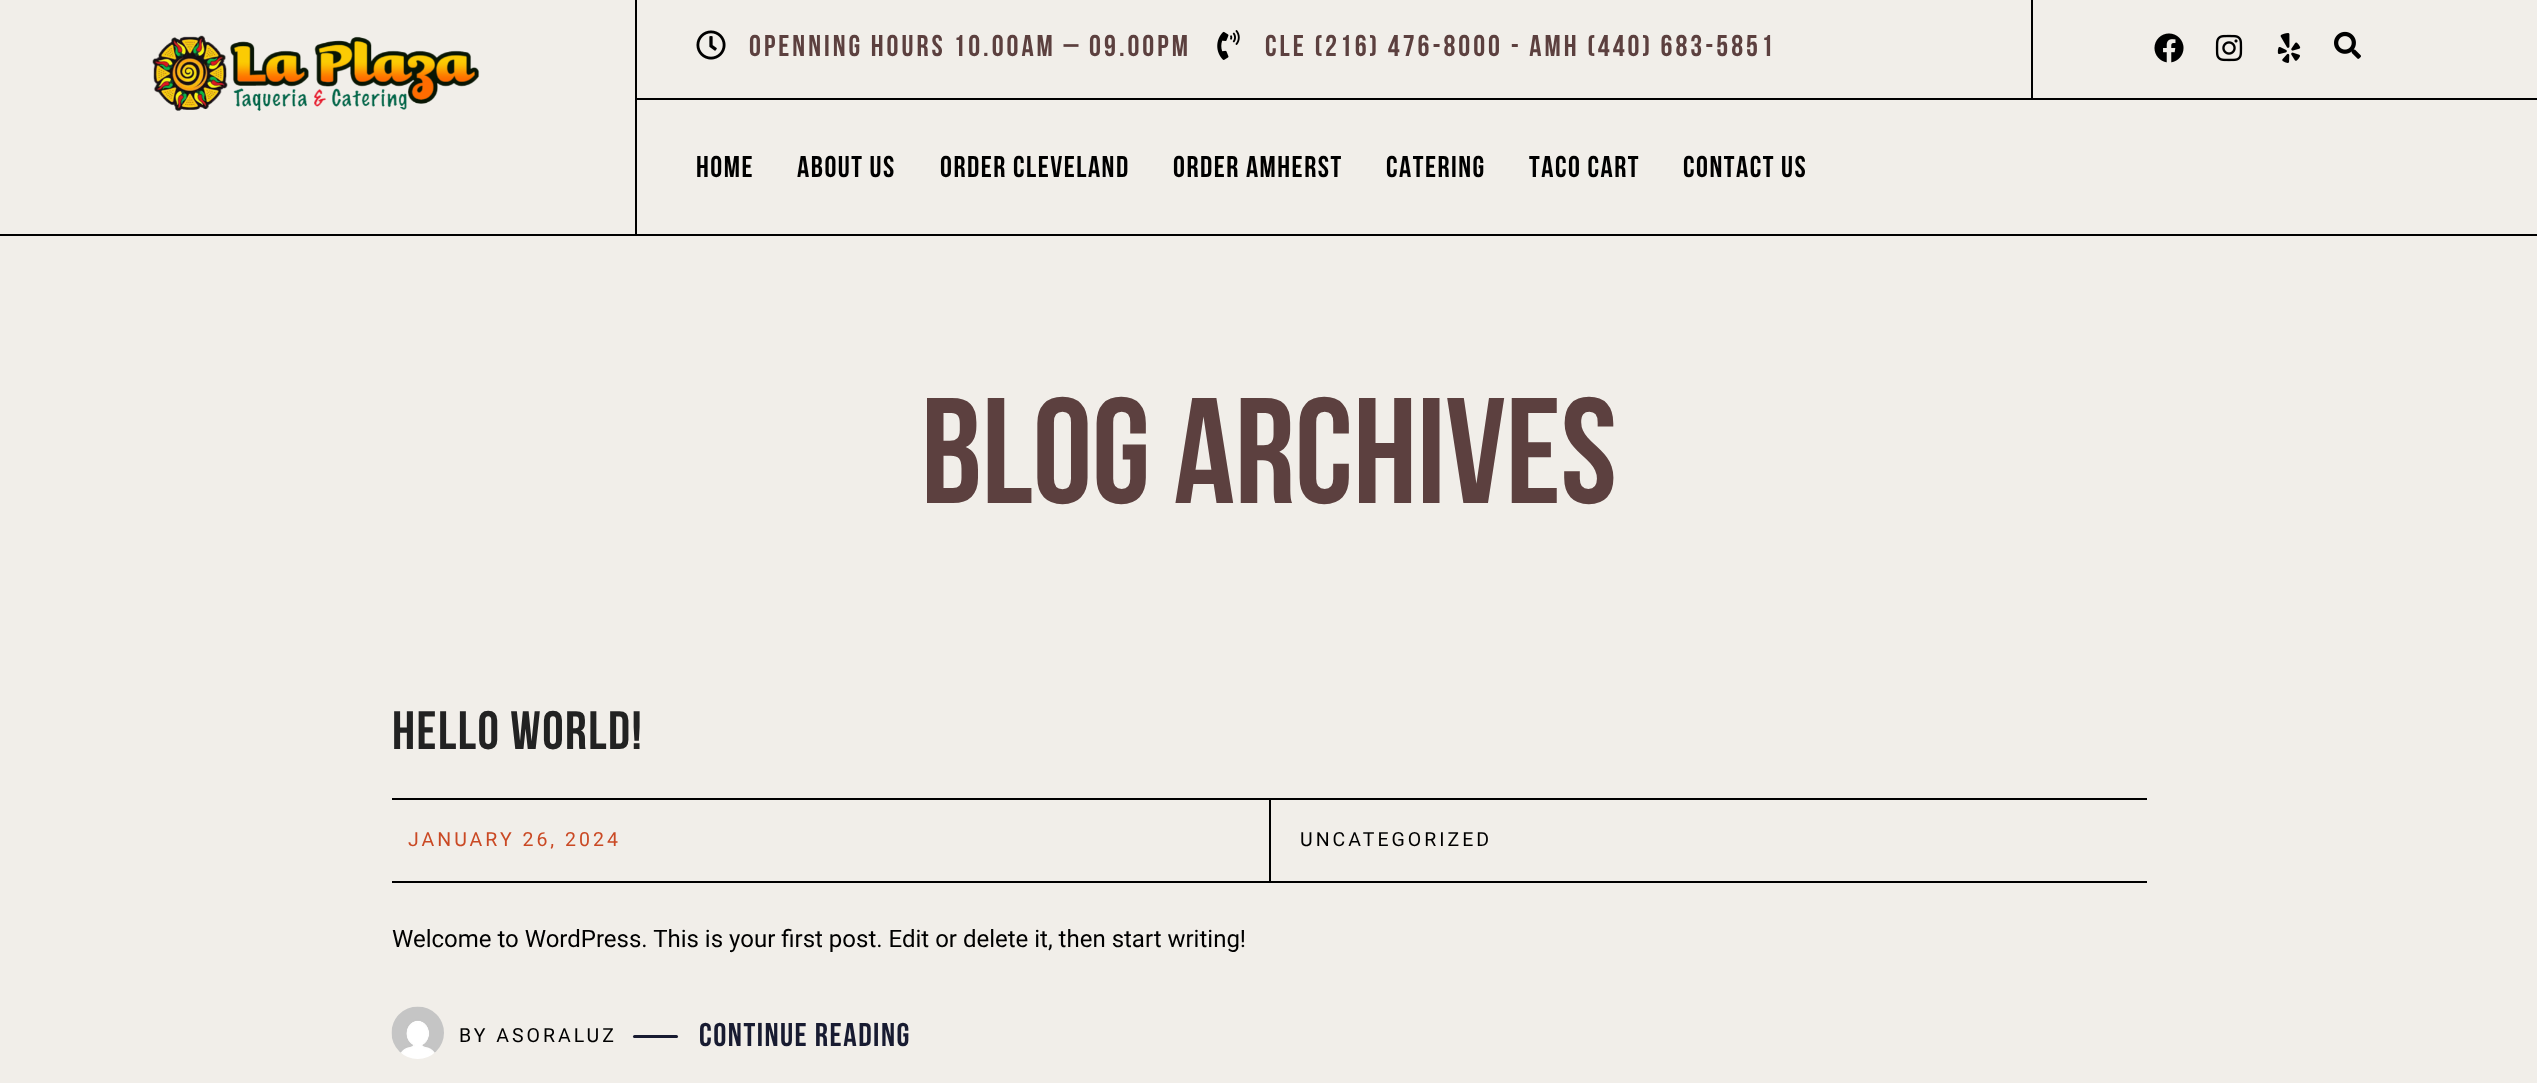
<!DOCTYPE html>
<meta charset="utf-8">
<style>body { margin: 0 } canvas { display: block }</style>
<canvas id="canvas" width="2537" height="1083"></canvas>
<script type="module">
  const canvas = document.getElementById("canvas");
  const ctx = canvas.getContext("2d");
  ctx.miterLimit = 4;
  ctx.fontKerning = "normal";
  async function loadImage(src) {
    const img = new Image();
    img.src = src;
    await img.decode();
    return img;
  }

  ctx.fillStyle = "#f1eee9";
  ctx.fillRect(0, 0, 2537, 1083);
  ctx.drawImage(await loadImage("img1.png"), 152, 35, 328, 76);
  ctx.fillStyle = "#000000";
  ctx.fillRect(635, 0, 2, 98);
  ctx.drawImage(await loadImage("img2.png"), 696, 30, 30, 30);
  ctx.letterSpacing = "3px";
  ctx.font = "bold 30px Bebas Neue";
  ctx.fillStyle = "#5c403f";
  ctx.fillText("OPENNING HOURS 10.00AM – 09.00PM", 749, 56);
  ctx.drawImage(await loadImage("img3.png"), 1217, 30, 23, 30);
  ctx.fillText("CLE (216) 476-8000 - AMH (440) 683-5851", 1265, 56);
  ctx.fillStyle = "#000000";
  ctx.fillRect(2031, 0, 2, 98);
  ctx.drawImage(await loadImage("img4.png"), 2154, 33, 30, 30);
  ctx.drawImage(await loadImage("img5.png"), 2215, 34, 28, 28);
  ctx.drawImage(await loadImage("img6.png"), 2277, 33, 24, 30);
  ctx.drawImage(await loadImage("img7.png"), 2334, 31, 27, 28);
  ctx.fillRect(635, 98, 1902, 2);
  ctx.fillRect(0, 234, 2537, 2);
  ctx.fillRect(635, 98, 2, 138);
  ctx.letterSpacing = "1.5px";
  ctx.fillText("HOME", 696, 177);
  ctx.fillText("ABOUT US", 797, 177);
  ctx.fillText("ORDER CLEVELAND", 940, 177);
  ctx.fillText("ORDER AMHERST", 1173, 177);
  ctx.fillText("CATERING", 1386, 177);
  ctx.fillText("TACO CART", 1529, 177);
  ctx.fillText("CONTACT US", 1683, 177);
  ctx.letterSpacing = "0px";
  ctx.font = "bold 150px Bebas Neue";
  ctx.fillStyle = "#5c403f";
  ctx.fillText("BLOG ARCHIVES", 921, 503);
  ctx.letterSpacing = "1.5px";
  ctx.font = "bold 54px Bebas Neue";
  ctx.fillStyle = "#222222";
  ctx.fillText("HELLO WORLD!", 392, 749);
  ctx.fillStyle = "#000000";
  ctx.fillRect(392, 798, 1755, 2);
  ctx.fillRect(392, 881, 1755, 2);
  ctx.letterSpacing = "3px";
  ctx.font = "19.5px Roboto";
  ctx.fillStyle = "#ca4924";
  ctx.fillText("JANUARY 26, 2024", 408, 846);
  ctx.fillStyle = "#000000";
  ctx.fillRect(1269, 800, 2, 81);
  ctx.fillText("UNCATEGORIZED", 1300, 846);
  ctx.letterSpacing = "0px";
  ctx.font = "24px Roboto";
  ctx.fillText("Welcome to WordPress. This is your first post. Edit or delete it, then start writing!", 392, 947);
  ctx.drawImage(await loadImage("img8.png"), 391, 1006, 53, 53);
  ctx.letterSpacing = "3px";
  ctx.font = "19.5px Roboto";
  ctx.fillText("BY ASORALUZ", 459, 1042);
  ctx.fillStyle = "#181b31";
  ctx.beginPath();
  ctx.roundRect(633, 1035, 45, 3, 1.5);
  ctx.fill();
  ctx.letterSpacing = "1.5px";
  ctx.font = "bold 33px Bebas Neue";
  ctx.fillText("CONTINUE READING", 699, 1046);
</script>
